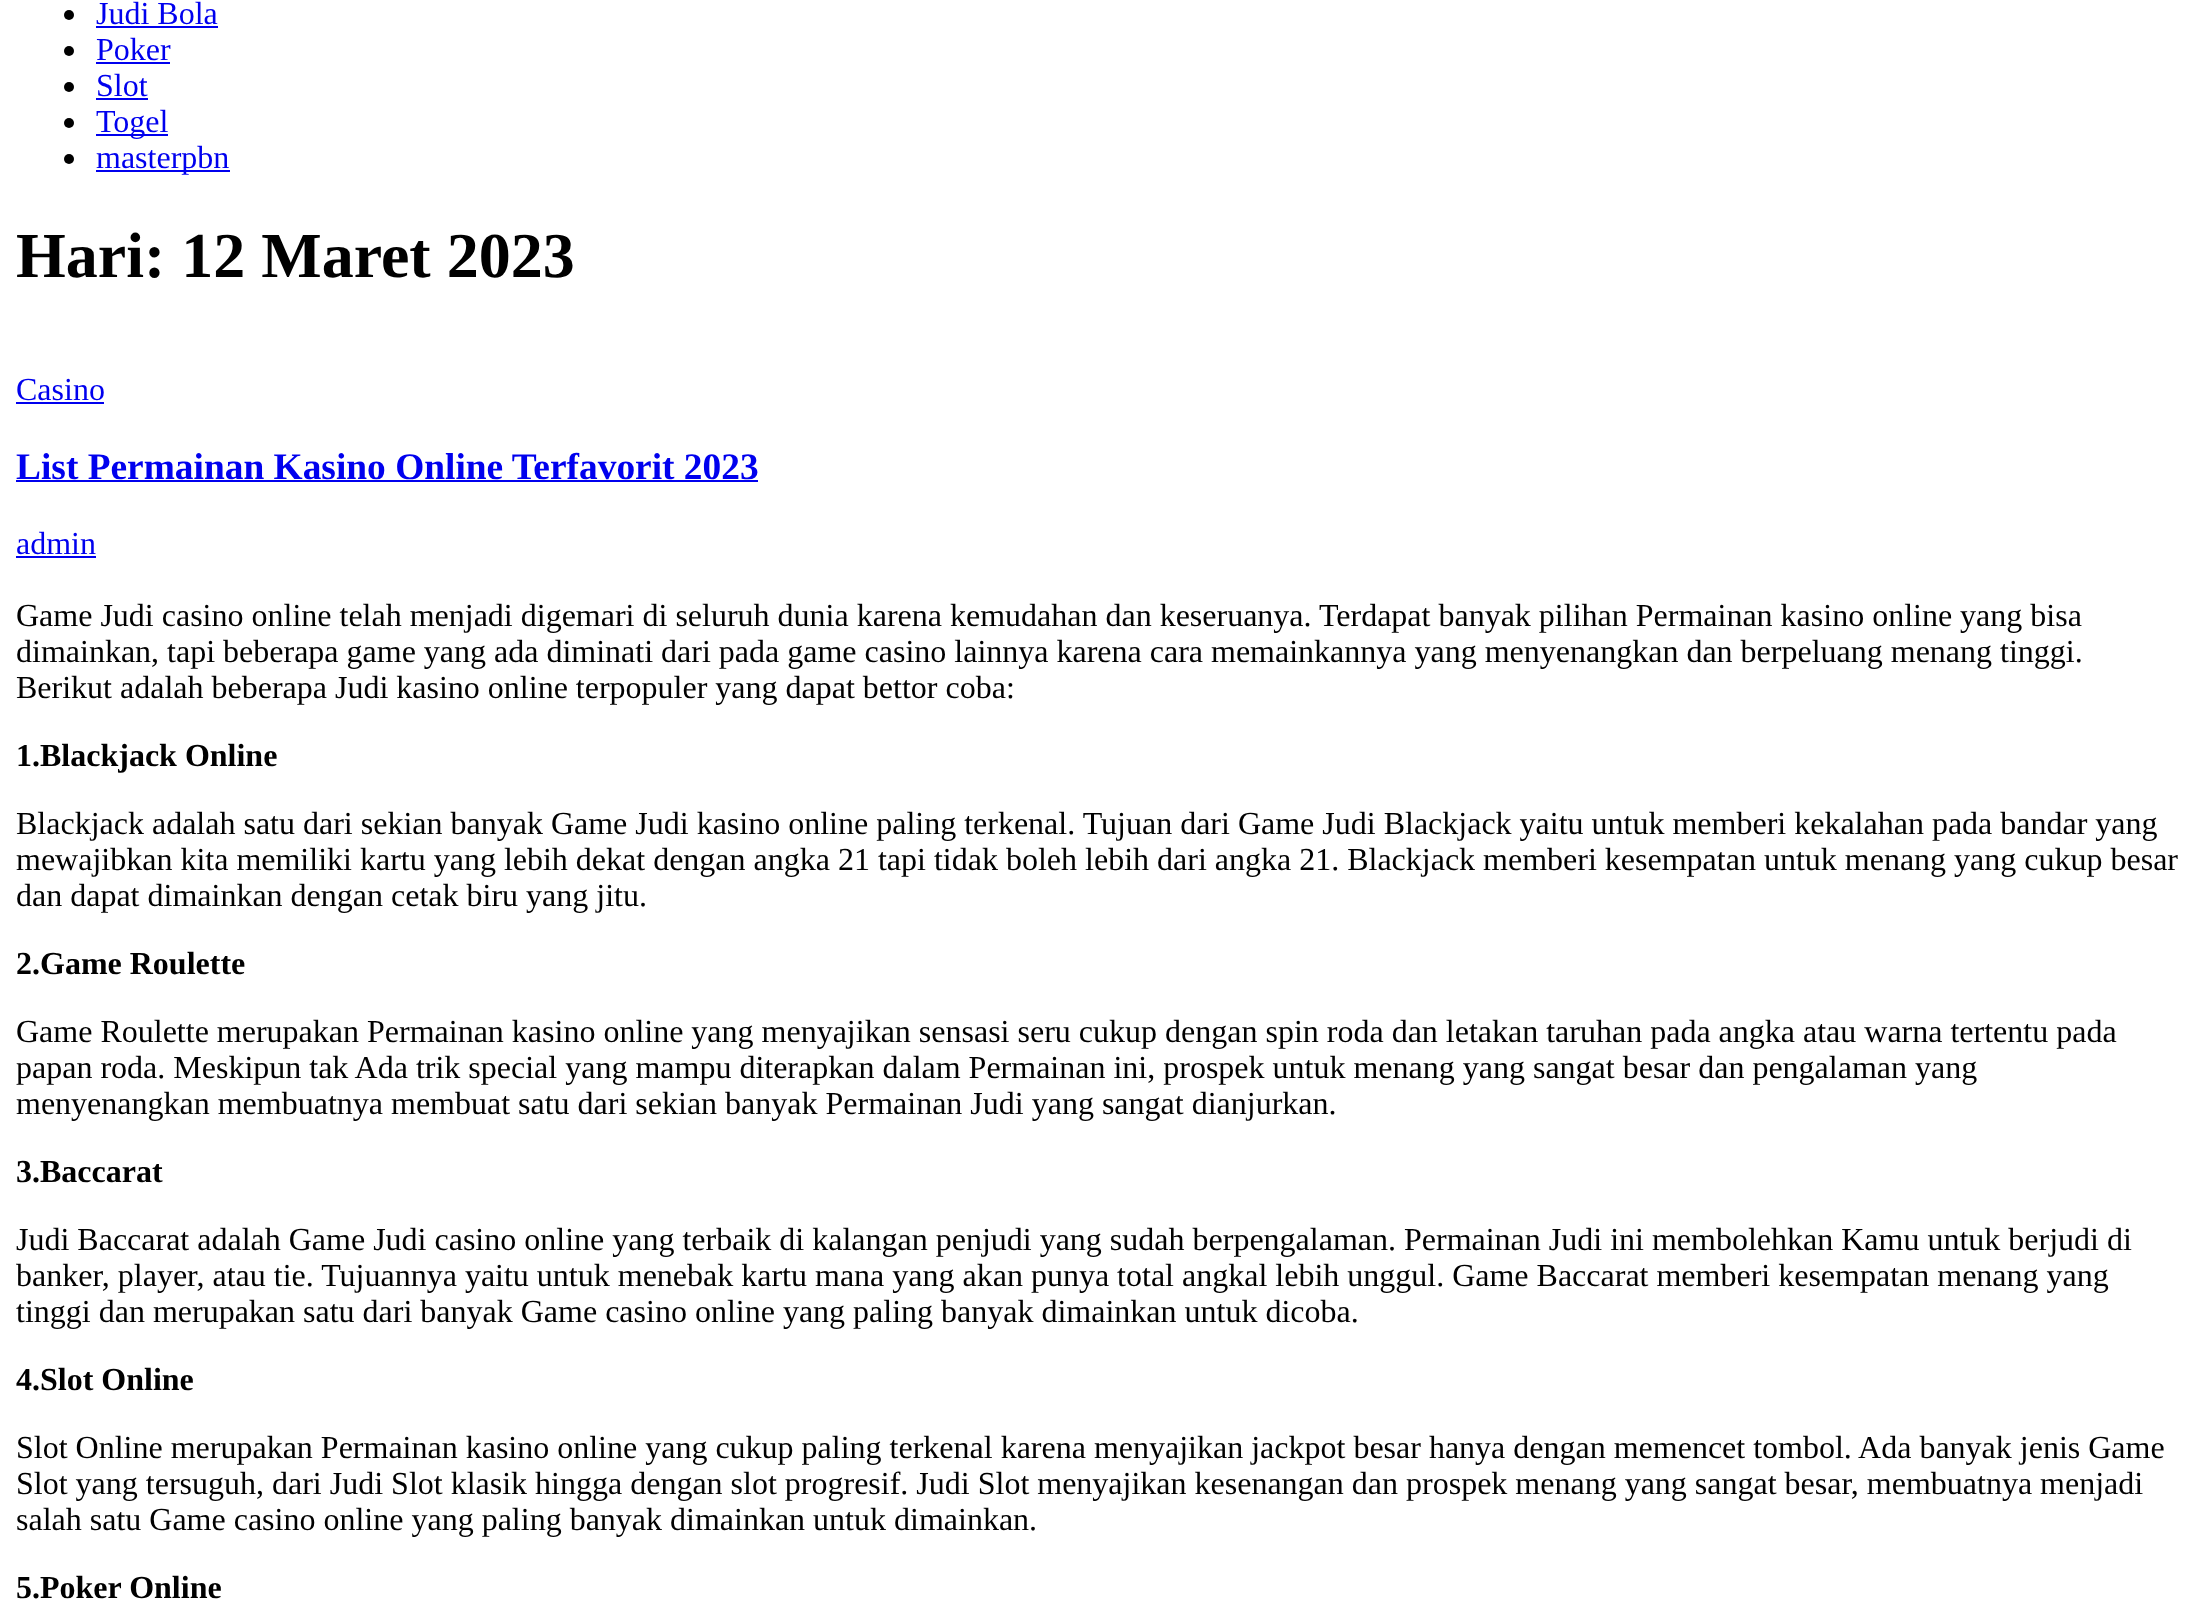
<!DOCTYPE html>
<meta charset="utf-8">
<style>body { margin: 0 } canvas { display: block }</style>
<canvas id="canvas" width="2193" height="1618"></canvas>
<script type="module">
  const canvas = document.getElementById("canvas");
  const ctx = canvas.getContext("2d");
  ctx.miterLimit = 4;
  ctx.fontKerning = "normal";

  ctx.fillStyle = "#ffffff";
  ctx.fillRect(0, 0, 2193, 1618);
  ctx.fillStyle = "#000000";
  ctx.beginPath();
  ctx.arc(69, 15, 5, 0, Math.PI * 2);
  ctx.fill();
  ctx.font = "32px Liberation Serif";
  ctx.fillStyle = "#0000ee";
  ctx.fillText("Judi Bola", 96, 24);
  ctx.fillRect(96, 26, 122, 2);
  ctx.fillStyle = "#000000";
  ctx.beginPath();
  ctx.arc(69, 51, 5, 0, Math.PI * 2);
  ctx.fill();
  ctx.fillStyle = "#0000ee";
  ctx.fillText("Poker", 96, 60);
  ctx.fillRect(96, 62, 74, 2);
  ctx.fillStyle = "#000000";
  ctx.beginPath();
  ctx.arc(69, 87, 5, 0, Math.PI * 2);
  ctx.fill();
  ctx.fillStyle = "#0000ee";
  ctx.fillText("Slot", 96, 96);
  ctx.fillRect(96, 98, 52, 2);
  ctx.fillStyle = "#000000";
  ctx.beginPath();
  ctx.arc(69, 123, 5, 0, Math.PI * 2);
  ctx.fill();
  ctx.fillStyle = "#0000ee";
  ctx.fillRect(96, 134, 72, 2);
  ctx.fillText("Togel", 96, 132);
  ctx.fillStyle = "#000000";
  ctx.beginPath();
  ctx.arc(69, 159, 5, 0, Math.PI * 2);
  ctx.fill();
  ctx.fillStyle = "#0000ee";
  ctx.fillRect(96, 170, 134, 2);
  ctx.fillText("masterpbn", 96, 168);
  ctx.font = "bold 64px Liberation Serif";
  ctx.fillStyle = "#000000";
  ctx.fillText("Hari: 12 Maret 2023", 16, 277);
  ctx.font = "32px Liberation Serif";
  ctx.fillStyle = "#0000ee";
  ctx.fillText("Casino", 16, 400);
  ctx.fillRect(16, 402, 88, 2);
  ctx.font = "bold 37.4px Liberation Serif";
  ctx.fillText("List Permainan Kasino Online Terfavorit 2023", 16, 479);
  ctx.fillRect(16, 480, 742, 2);
  ctx.font = "32px Liberation Serif";
  ctx.fillText("admin", 16, 554);
  ctx.fillRect(16, 556, 80, 2);
  ctx.fillStyle = "#000000";
  ctx.fillText("Game Judi casino online telah menjadi digemari di seluruh dunia karena kemudahan dan keseruanya. Terdapat banyak pilihan Permainan kasino online yang bisa", 16, 626);
  ctx.fillText("dimainkan, tapi beberapa game yang ada diminati dari pada game casino lainnya karena cara memainkannya yang menyenangkan dan berpeluang menang tinggi.", 16, 662);
  ctx.fillText("Berikut adalah beberapa Judi kasino online terpopuler yang dapat bettor coba:", 16, 698);
  ctx.font = "bold 32px Liberation Serif";
  ctx.fillText("1.Blackjack Online", 16, 766);
  ctx.font = "32px Liberation Serif";
  ctx.fillText("Blackjack adalah satu dari sekian banyak Game Judi kasino online paling terkenal. Tujuan dari Game Judi Blackjack yaitu untuk memberi kekalahan pada bandar yang", 16, 834);
  ctx.fillText("mewajibkan kita memiliki kartu yang lebih dekat dengan angka 21 tapi tidak boleh lebih dari angka 21. Blackjack memberi kesempatan untuk menang yang cukup besar", 16, 870);
  ctx.fillText("dan dapat dimainkan dengan cetak biru yang jitu.", 16, 906);
  ctx.font = "bold 32px Liberation Serif";
  ctx.fillText("2.Game Roulette", 16, 974);
  ctx.font = "32px Liberation Serif";
  ctx.fillText("Game Roulette merupakan Permainan kasino online yang menyajikan sensasi seru cukup dengan spin roda dan letakan taruhan pada angka atau warna tertentu pada", 16, 1042);
  ctx.fillText("papan roda. Meskipun tak Ada trik special yang mampu diterapkan dalam Permainan ini, prospek untuk menang yang sangat besar dan pengalaman yang", 16, 1078);
  ctx.fillText("menyenangkan membuatnya membuat satu dari sekian banyak Permainan Judi yang sangat dianjurkan.", 16, 1114);
  ctx.font = "bold 32px Liberation Serif";
  ctx.fillText("3.Baccarat", 16, 1182);
  ctx.font = "32px Liberation Serif";
  ctx.fillText("Judi Baccarat adalah Game Judi casino online yang terbaik di kalangan penjudi yang sudah berpengalaman. Permainan Judi ini membolehkan Kamu untuk berjudi di", 16, 1250);
  ctx.fillText("banker, player, atau tie. Tujuannya yaitu untuk menebak kartu mana yang akan punya total angkal lebih unggul. Game Baccarat memberi kesempatan menang yang", 16, 1286);
  ctx.fillText("tinggi dan merupakan satu dari banyak Game casino online yang paling banyak dimainkan untuk dicoba.", 16, 1322);
  ctx.font = "bold 32px Liberation Serif";
  ctx.fillText("4.Slot Online", 16, 1390);
  ctx.font = "32px Liberation Serif";
  ctx.fillText("Slot Online merupakan Permainan kasino online yang cukup paling terkenal karena menyajikan jackpot besar hanya dengan memencet tombol. Ada banyak jenis Game", 16, 1458);
  ctx.fillText("Slot yang tersuguh, dari Judi Slot klasik hingga dengan slot progresif. Judi Slot menyajikan kesenangan dan prospek menang yang sangat besar, membuatnya menjadi", 16, 1494);
  ctx.fillText("salah satu Game casino online yang paling banyak dimainkan untuk dimainkan.", 16, 1530);
  ctx.font = "bold 32px Liberation Serif";
  ctx.fillText("5.Poker Online", 16, 1598);
</script>
